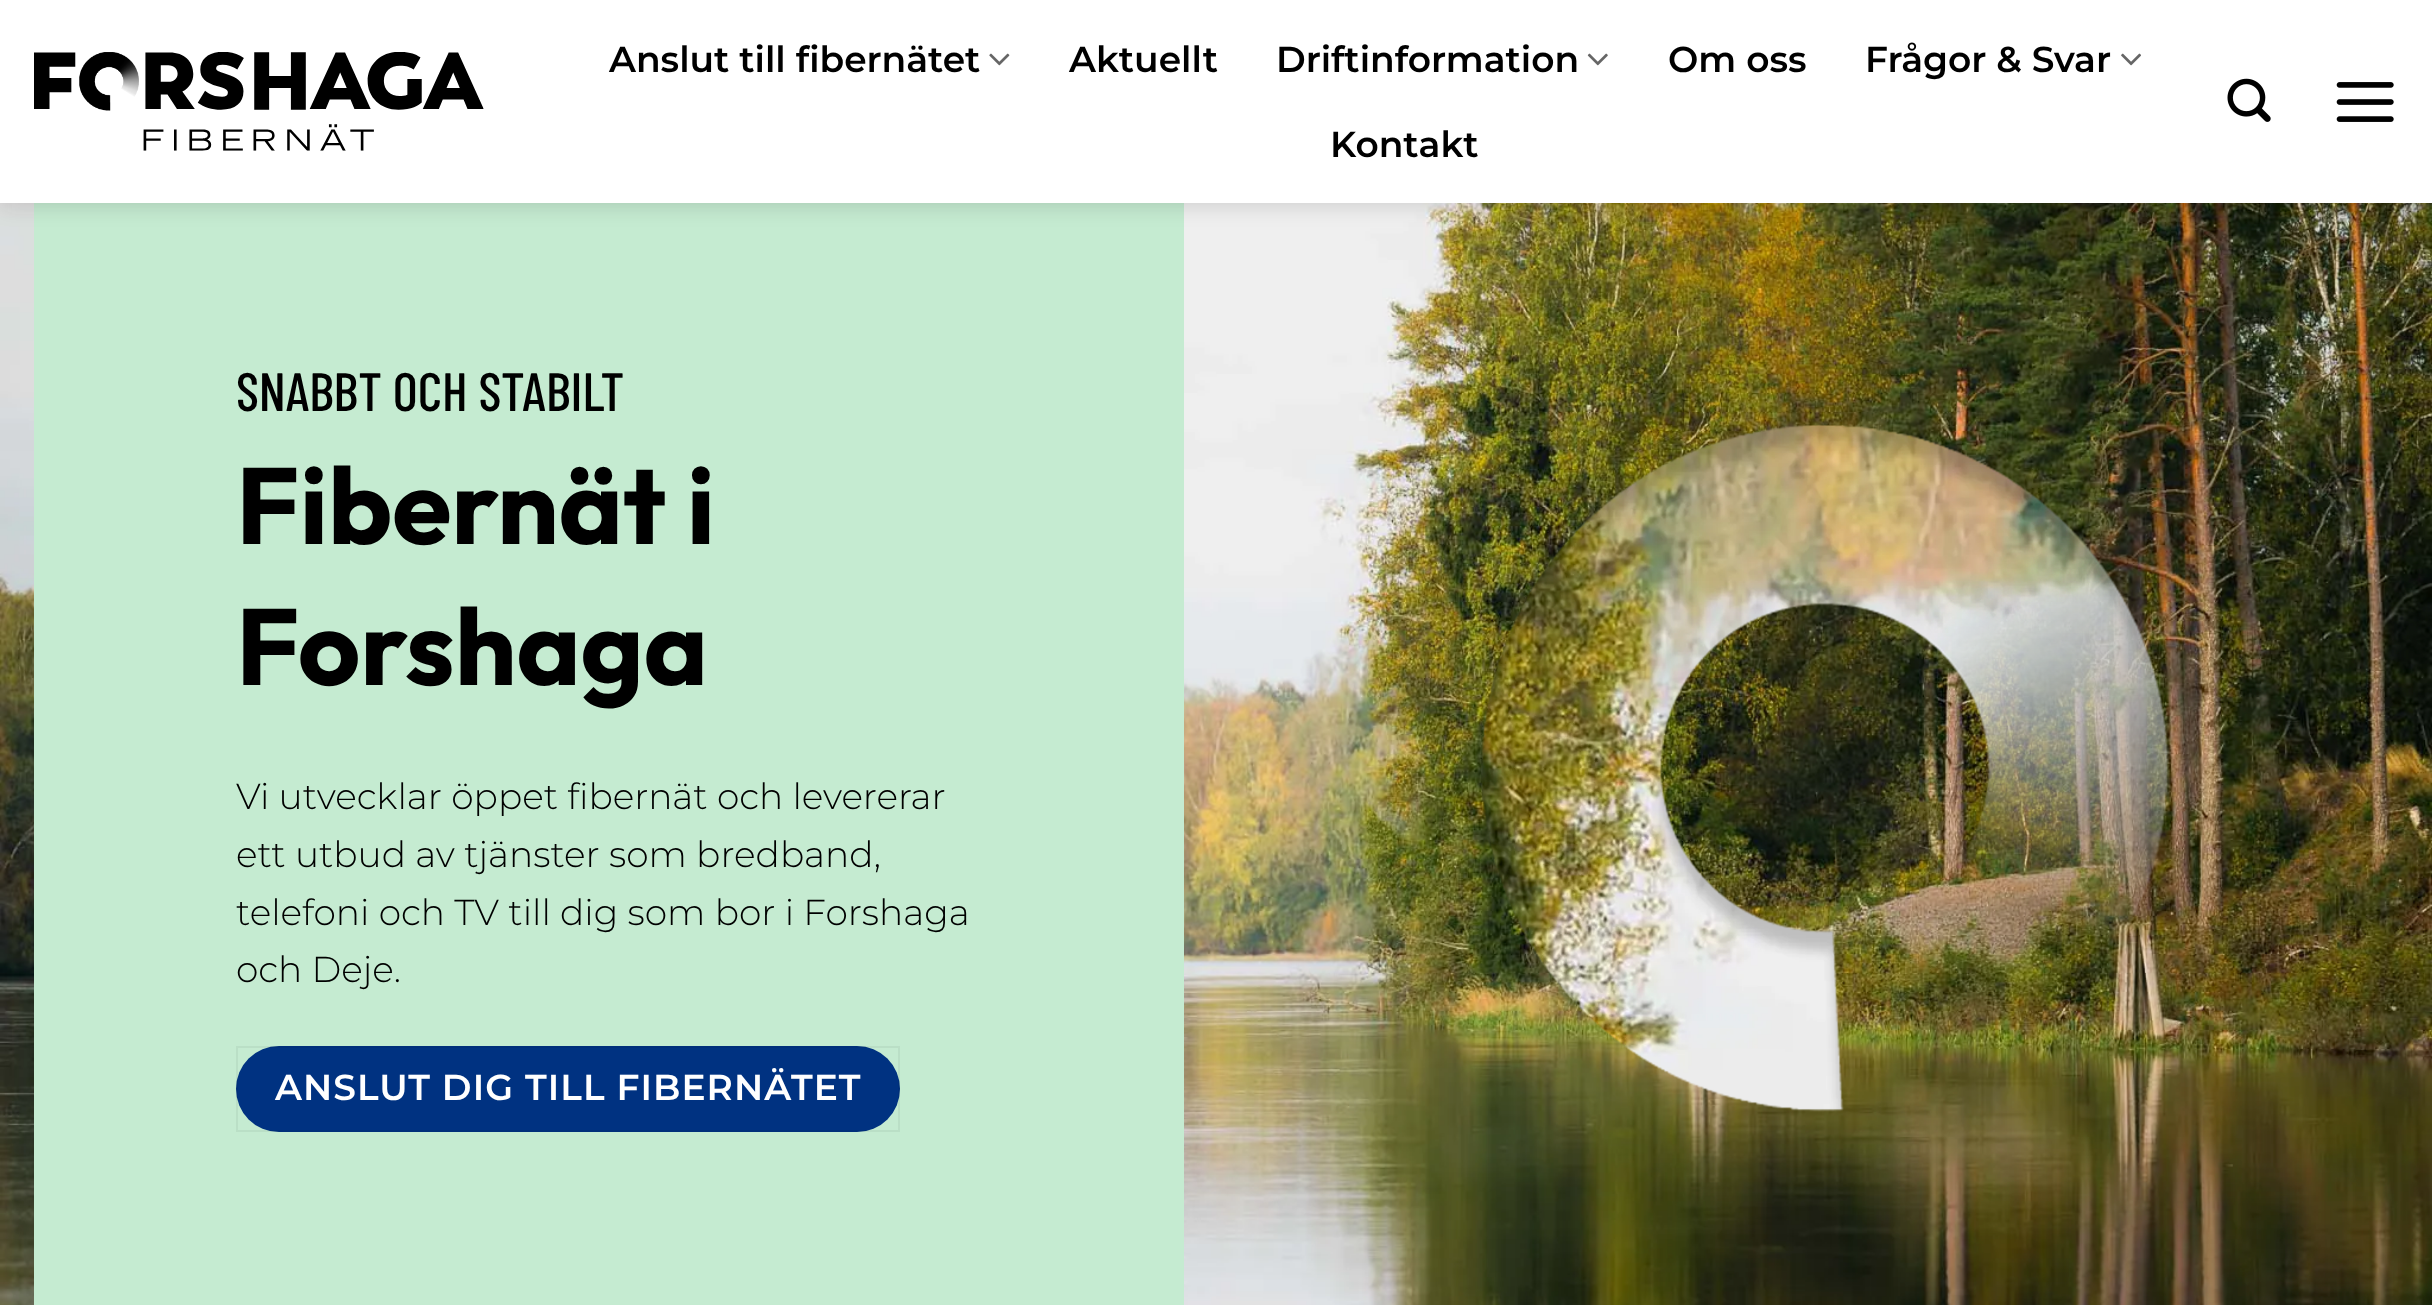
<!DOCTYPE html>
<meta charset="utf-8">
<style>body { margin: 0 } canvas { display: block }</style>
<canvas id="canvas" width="2432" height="1305"></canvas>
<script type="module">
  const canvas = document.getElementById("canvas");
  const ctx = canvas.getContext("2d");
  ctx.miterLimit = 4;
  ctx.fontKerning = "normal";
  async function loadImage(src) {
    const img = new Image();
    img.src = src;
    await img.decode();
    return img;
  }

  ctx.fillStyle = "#ffffff";
  ctx.fillRect(0, 0, 2432, 1305);
  ctx.drawImage(await loadImage("img7.png"), 0, 203, 2432, 1102);
  ctx.fillStyle = "#c5ebd1";
  ctx.fillRect(34, 203, 1150, 1102);
  ctx.fillStyle = "rgba(0, 0, 0, 0.15)";
  ctx.filter = "blur(11px)";
  ctx.beginPath();
  ctx.rect(2, 2, 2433, 203);
  ctx.fill();
  ctx.filter = "none";
  ctx.fillStyle = "#ffffff";
  ctx.fillRect(0, 0, 2432, 203);
  ctx.drawImage(await loadImage("img1.png"), 34, 52, 450, 99);
  ctx.font = "600 36px Montserrat";
  ctx.fillStyle = "#000000";
  ctx.fillText("Anslut till fibernätet", 609, 72);
  ctx.drawImage(await loadImage("img2.png"), 989, 53, 21, 13);
  ctx.fillText("Aktuellt", 1069, 72);
  ctx.fillText("Driftinformation", 1276, 72);
  ctx.drawImage(await loadImage("img3.png"), 1587, 53, 21, 13);
  ctx.fillText("Om oss", 1668, 72);
  ctx.fillText("Frågor & Svar", 1865, 72);
  ctx.drawImage(await loadImage("img4.png"), 2121, 53, 20, 13);
  ctx.fillText("Kontakt", 1330, 157);
  ctx.drawImage(await loadImage("img5.png"), 2227, 78, 44, 44);
  ctx.drawImage(await loadImage("img6.png"), 2336, 82, 58, 40);
  ctx.font = "500 54px Barlow Condensed";
  ctx.fillText("SNABBT OCH STABILT", 236, 411);
  ctx.font = "bold 108px Outfit";
  ctx.fillText("Fibernät i", 236, 544);
  ctx.fillText("Forshaga", 236, 685);
  ctx.font = "300 36px Montserrat";
  ctx.fillText("Vi utvecklar öppet fibernät och levererar", 236, 809);
  ctx.fillText("ett utbud av tjänster som bredband,", 236, 867);
  ctx.fillText("telefoni och TV till dig som bor i Forshaga", 236, 925);
  ctx.fillText("och Deje.", 236, 982);
  ctx.fillStyle = "#003281";
  ctx.beginPath();
  ctx.roundRect(236, 1046, 664, 86, 43);
  ctx.fill();
  ctx.strokeStyle = "rgba(0, 0, 0, 0.05)";
  ctx.lineWidth = 2;
  ctx.strokeRect(237, 1047, 662, 84);
  ctx.letterSpacing = "1.05px";
  ctx.font = "600 36px Montserrat";
  ctx.fillStyle = "#ffffff";
  ctx.fillText("ANSLUT DIG TILL FIBERNÄTET", 275, 1100);
  ctx.drawImage(await loadImage("img8.png"), 1481, 425, 688, 687);
</script>
